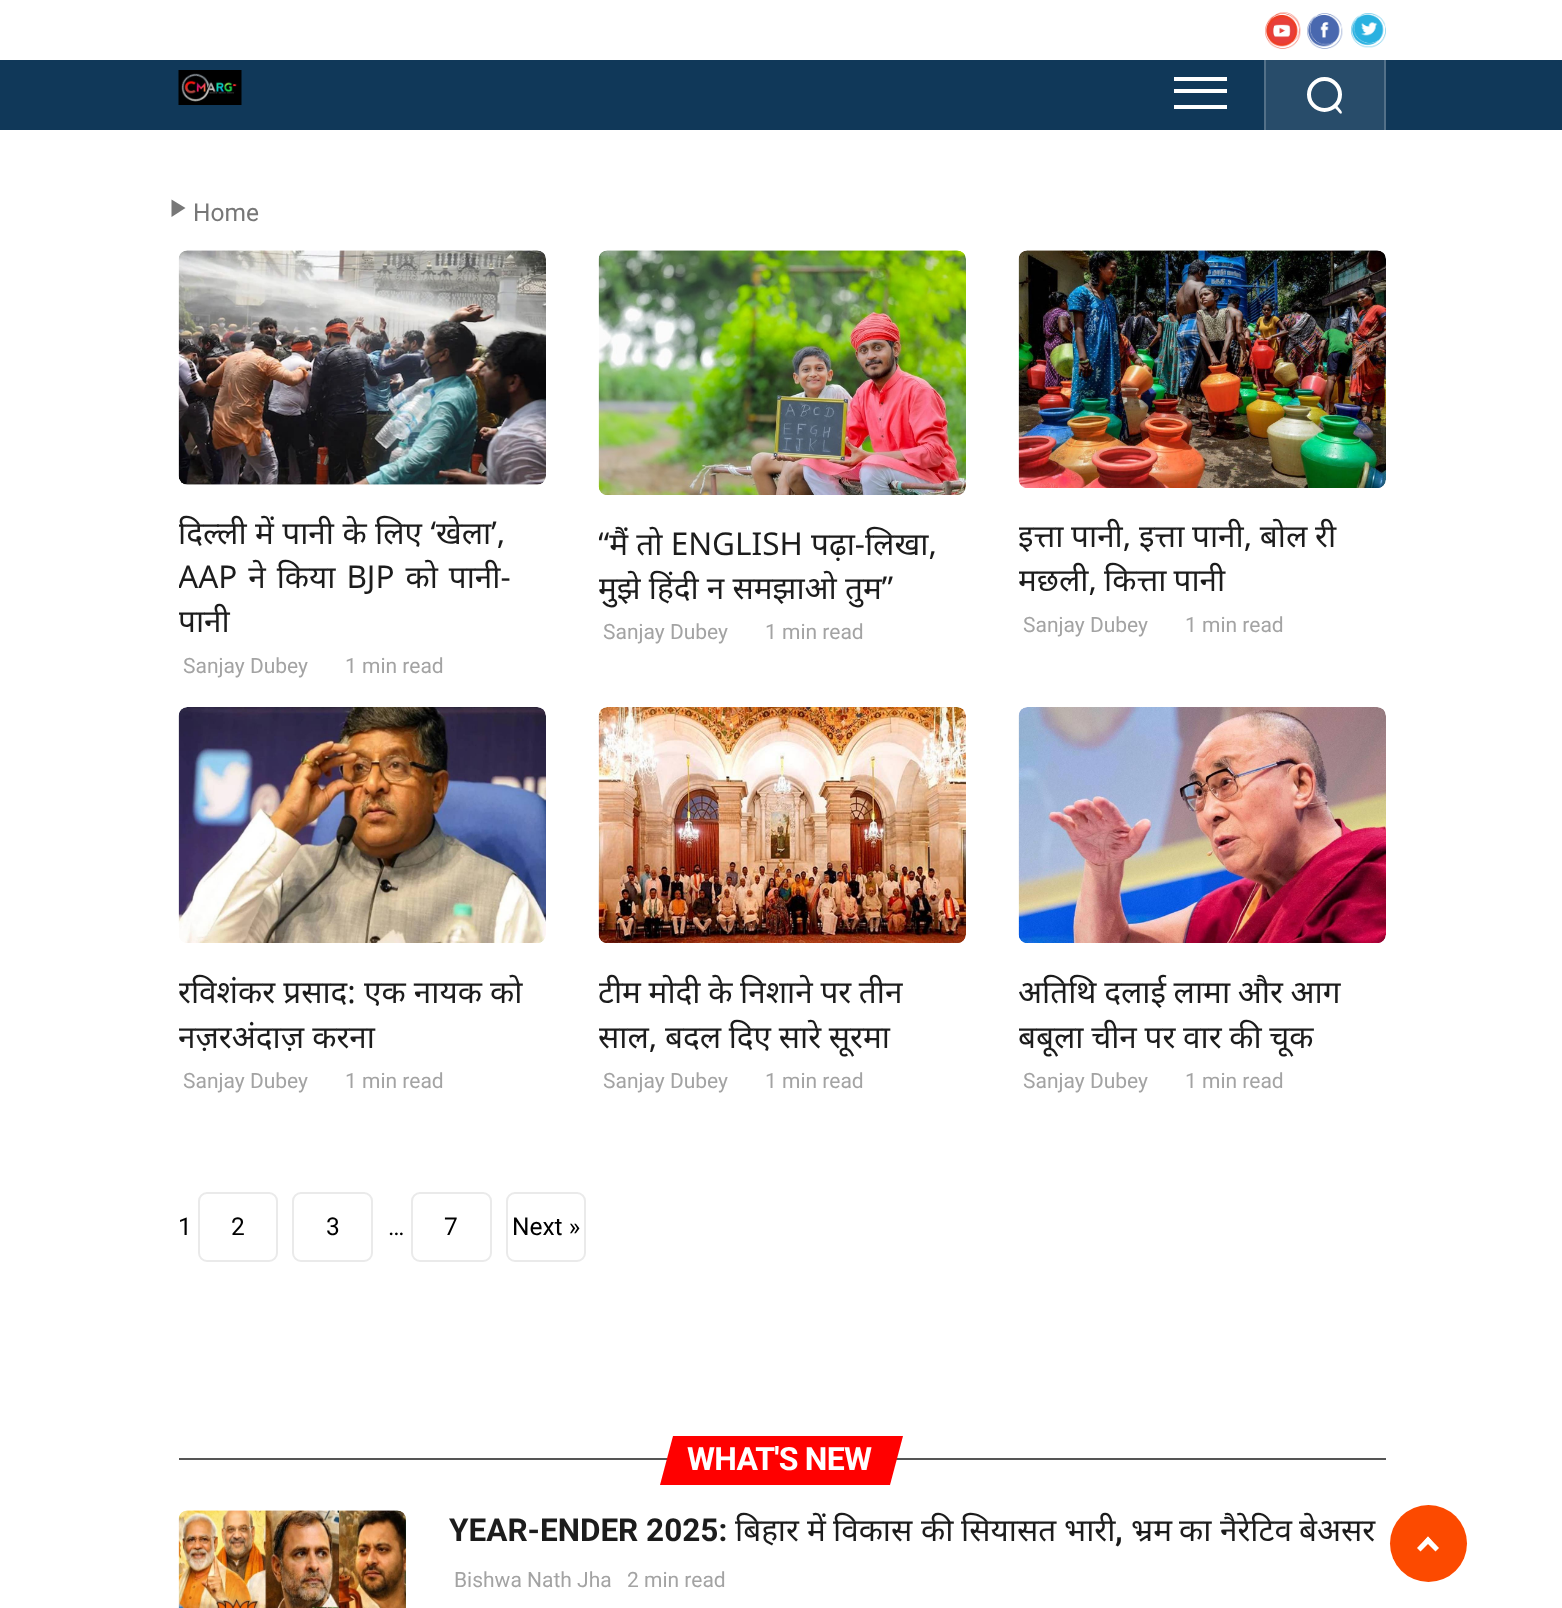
<!DOCTYPE html>
<meta charset="utf-8">
<style>body { margin: 0 } canvas { display: block }</style>
<canvas id="canvas" width="1562" height="1608"></canvas>
<script type="module">
  const canvas = document.getElementById("canvas");
  const ctx = canvas.getContext("2d");
  ctx.miterLimit = 4;
  ctx.fontKerning = "normal";
  async function loadImage(src) {
    const img = new Image();
    img.src = src;
    await img.decode();
    return img;
  }

  ctx.fillStyle = "#ffffff";
  ctx.fillRect(0, 0, 1562, 1608);
  ctx.drawImage(await loadImage("img1.png"), 1265, 12, 36, 37);
  ctx.drawImage(await loadImage("img2.png"), 1307, 13, 36, 36);
  ctx.drawImage(await loadImage("img3.png"), 1351, 13, 35, 35);
  ctx.fillStyle = "#103859";
  ctx.fillRect(0, 60, 1562, 70);
  ctx.drawImage(await loadImage("img4.png"), 178, 70, 64, 35);
  ctx.fillStyle = "#ffffff";
  ctx.fillRect(1174, 77, 53, 4);
  ctx.fillRect(1174, 89, 53, 4);
  ctx.fillRect(1174, 105, 53, 4);
  ctx.fillStyle = "#284c6a";
  ctx.fillRect(1266, 60, 118, 70);
  ctx.fillStyle = "#537088";
  ctx.fillRect(1384, 60, 2, 70);
  ctx.fillRect(1264, 60, 2, 70);
  ctx.beginPath();
  ctx.arc(1324.5, 94.5, 15.5, 0, Math.PI * 2);
  ctx.strokeStyle = "#ffffff";
  ctx.lineWidth = 4;
  ctx.stroke();
  ctx.fillStyle = "#ffffff";
  ctx.beginPath();
  ctx.moveTo(1334, 104.5);
  ctx.bezierCurveTo(1336, 103, 1338, 107, 1339, 108);
  ctx.bezierCurveTo(1339.5, 109, 1343, 112, 1341.5, 113.5);
  ctx.bezierCurveTo(1340, 114.5, 1337.5, 110.5, 1337, 110);
  ctx.bezierCurveTo(1336, 109, 1332.5, 106, 1334, 104.5);
  ctx.closePath();
  ctx.fill();
  ctx.fillStyle = "#777777";
  ctx.beginPath();
  ctx.moveTo(171.5, 217);
  ctx.lineTo(171.5, 199.5);
  ctx.lineTo(185.5, 208);
  ctx.closePath();
  ctx.fill();
  ctx.font = "24.5px Roboto";
  ctx.fillText("Home", 193, 221);
  ctx.drawImage(await loadImage("img5.png"), 178, 250, 368, 235);
  ctx.save();
  ctx.beginPath();
  ctx.rect(179, 250, 367, 440);
  ctx.clip();
  ctx.wordSpacing = "0.25px";
  ctx.font = "31.5px Noto Sans";
  ctx.fillStyle = "#1c1c1c";
  ctx.fillText("दिल्ली में पानी के लिए ‘खेला’,", 178, 544);
  ctx.wordSpacing = "2.75px";
  ctx.fillText("AAP ने किया BJP को पानी-", 178, 588);
  ctx.wordSpacing = "0px";
  ctx.fillText("पानी", 178, 632);
  ctx.restore();
  ctx.font = "21px Roboto";
  ctx.fillStyle = "#a3a3a3";
  ctx.fillText("Sanjay Dubey", 183, 673);
  ctx.fillText("1 min read", 345, 673);
  ctx.drawImage(await loadImage("img6.png"), 598, 250, 368, 245);
  ctx.save();
  ctx.beginPath();
  ctx.rect(599, 250, 367, 405);
  ctx.clip();
  ctx.font = "31.5px Noto Sans";
  ctx.fillStyle = "#1c1c1c";
  ctx.fillText("“मैं तो ENGLISH पढ़ा-लिखा,", 598, 555);
  ctx.fillText("मुझे हिंदी न समझाओ तुम”", 598, 599);
  ctx.restore();
  ctx.fillText("Sanjay Dubey", 603, 639);
  ctx.fillText("1 min read", 765, 639);
  ctx.drawImage(await loadImage("img7.png"), 1018, 250, 368, 238);
  ctx.save();
  ctx.beginPath();
  ctx.rect(1019, 250, 367, 398);
  ctx.clip();
  ctx.wordSpacing = "-0.5px";
  ctx.font = "31.5px Noto Sans";
  ctx.fillStyle = "#1c1c1c";
  ctx.fillText("इत्ता पानी, इत्ता पानी, बोल री", 1018, 547);
  ctx.wordSpacing = "-1px";
  ctx.fillText("मछली, कित्ता पानी", 1018, 591);
  ctx.restore();
  ctx.fillText("Sanjay Dubey", 1023, 632);
  ctx.fillText("1 min read", 1185, 632);
  ctx.drawImage(await loadImage("img8.png"), 178, 707, 368, 236);
  ctx.save();
  ctx.beginPath();
  ctx.rect(179, 707, 367, 397);
  ctx.clip();
  ctx.font = "31.5px Noto Sans";
  ctx.fillStyle = "#1c1c1c";
  ctx.fillText("रविशंकर प्रसाद: एक नायक को", 178, 1003);
  ctx.fillText("नज़रअंदाज़ करना", 178, 1048);
  ctx.restore();
  ctx.fillText("Sanjay Dubey", 183, 1088);
  ctx.fillText("1 min read", 345, 1088);
  ctx.drawImage(await loadImage("img9.png"), 598, 707, 368, 236);
  ctx.save();
  ctx.beginPath();
  ctx.rect(599, 707, 367, 397);
  ctx.clip();
  ctx.wordSpacing = "-0.5px";
  ctx.font = "31.5px Noto Sans";
  ctx.fillStyle = "#1c1c1c";
  ctx.fillText("टीम मोदी के निशाने पर तीन", 598, 1003);
  ctx.fillText("साल, बदल दिए सारे सूरमा", 598, 1048);
  ctx.restore();
  ctx.fillText("Sanjay Dubey", 603, 1088);
  ctx.fillText("1 min read", 765, 1088);
  ctx.drawImage(await loadImage("img10.png"), 1018, 707, 368, 236);
  ctx.wordSpacing = "-0.5px";
  ctx.font = "31.5px Noto Sans";
  ctx.fillStyle = "#1c1c1c";
  ctx.fillText("अतिथि दलाई लामा और आग", 1018, 1003);
  ctx.save();
  ctx.beginPath();
  ctx.rect(1019, 707, 367, 397);
  ctx.clip();
  ctx.fillText("बबूला चीन पर वार की चूक", 1018, 1048);
  ctx.restore();
  ctx.wordSpacing = "0px";
  ctx.font = "21px Roboto";
  ctx.fillStyle = "#a3a3a3";
  ctx.fillText("Sanjay Dubey", 1023, 1088);
  ctx.fillText("1 min read", 1185, 1088);
  ctx.font = "24.5px Roboto";
  ctx.fillStyle = "#000000";
  ctx.fillText("1", 178, 1235);
  ctx.beginPath();
  ctx.roundRect(199, 1193, 78, 68, 8);
  ctx.strokeStyle = "#eaeaea";
  ctx.lineWidth = 2;
  ctx.stroke();
  ctx.fillText("2", 231, 1235);
  ctx.beginPath();
  ctx.roundRect(293, 1193, 79, 68, 8);
  ctx.stroke();
  ctx.fillText("3", 326, 1235);
  ctx.fillText("…", 388, 1235);
  ctx.beginPath();
  ctx.roundRect(412, 1193, 79, 68, 8);
  ctx.stroke();
  ctx.fillText("7", 444, 1235);
  ctx.beginPath();
  ctx.roundRect(507, 1193, 78, 68, 8);
  ctx.stroke();
  ctx.fillText("Next »", 512, 1235);
  ctx.fillStyle = "#555555";
  ctx.fillRect(179, 1458, 1207, 2);
  ctx.fillStyle = "#ff0000";
  ctx.beginPath();
  ctx.moveTo(673, 1436);
  ctx.lineTo(903, 1436);
  ctx.lineTo(890, 1485);
  ctx.lineTo(660, 1485);
  ctx.closePath();
  ctx.fill();
  ctx.letterSpacing = "-0.75px";
  ctx.font = "bold 32px Roboto";
  ctx.fillStyle = "#ffffff";
  ctx.fillText("WHAT'S NEW", 687, 1470);
  ctx.drawImage(await loadImage("img11.png"), 178, 1510, 228, 98);
  ctx.letterSpacing = "0px";
  ctx.font = "bold 31.5px Roboto";
  ctx.fillStyle = "#1c1c1c";
  ctx.fillText("YEAR-ENDER 2025:", 449, 1541);
  ctx.font = "31.5px Noto Sans";
  ctx.fillText("बिहार", 735, 1541);
  ctx.fillText("में", 807, 1541);
  ctx.fillText("विकास", 833, 1541);
  ctx.fillText("की", 921, 1541);
  ctx.fillText("सियासत", 961, 1541);
  ctx.fillText("भारी", 1064, 1541);
  ctx.fillText("भ्रम", 1131, 1541);
  ctx.fillText("का", 1179, 1541);
  ctx.fillText("नैरेटिव", 1220, 1541);
  ctx.fillText("बेअसर", 1299, 1541);
  ctx.font = "bold 31.5px Roboto";
  ctx.fillText(",", 1115, 1541);
  ctx.font = "21px Roboto";
  ctx.fillStyle = "#a3a3a3";
  ctx.fillText("Bishwa Nath Jha", 454, 1587);
  ctx.fillText("2 min read", 627, 1587);
  ctx.fillStyle = "#fc4a00";
  ctx.beginPath();
  ctx.arc(1428.5, 1543.5, 38.5, 0, Math.PI * 2);
  ctx.fill();
  ctx.fillStyle = "#ffffff";
  ctx.beginPath();
  ctx.moveTo(1420.5, 1551.5);
  ctx.lineTo(1417, 1548);
  ctx.lineTo(1428, 1536.5);
  ctx.lineTo(1431.5, 1540.5);
  ctx.closePath();
  ctx.fill();
  ctx.beginPath();
  ctx.moveTo(1435.5, 1551.5);
  ctx.lineTo(1424.5, 1540.5);
  ctx.lineTo(1428, 1536.5);
  ctx.lineTo(1439, 1548);
  ctx.closePath();
  ctx.fill();
</script>
